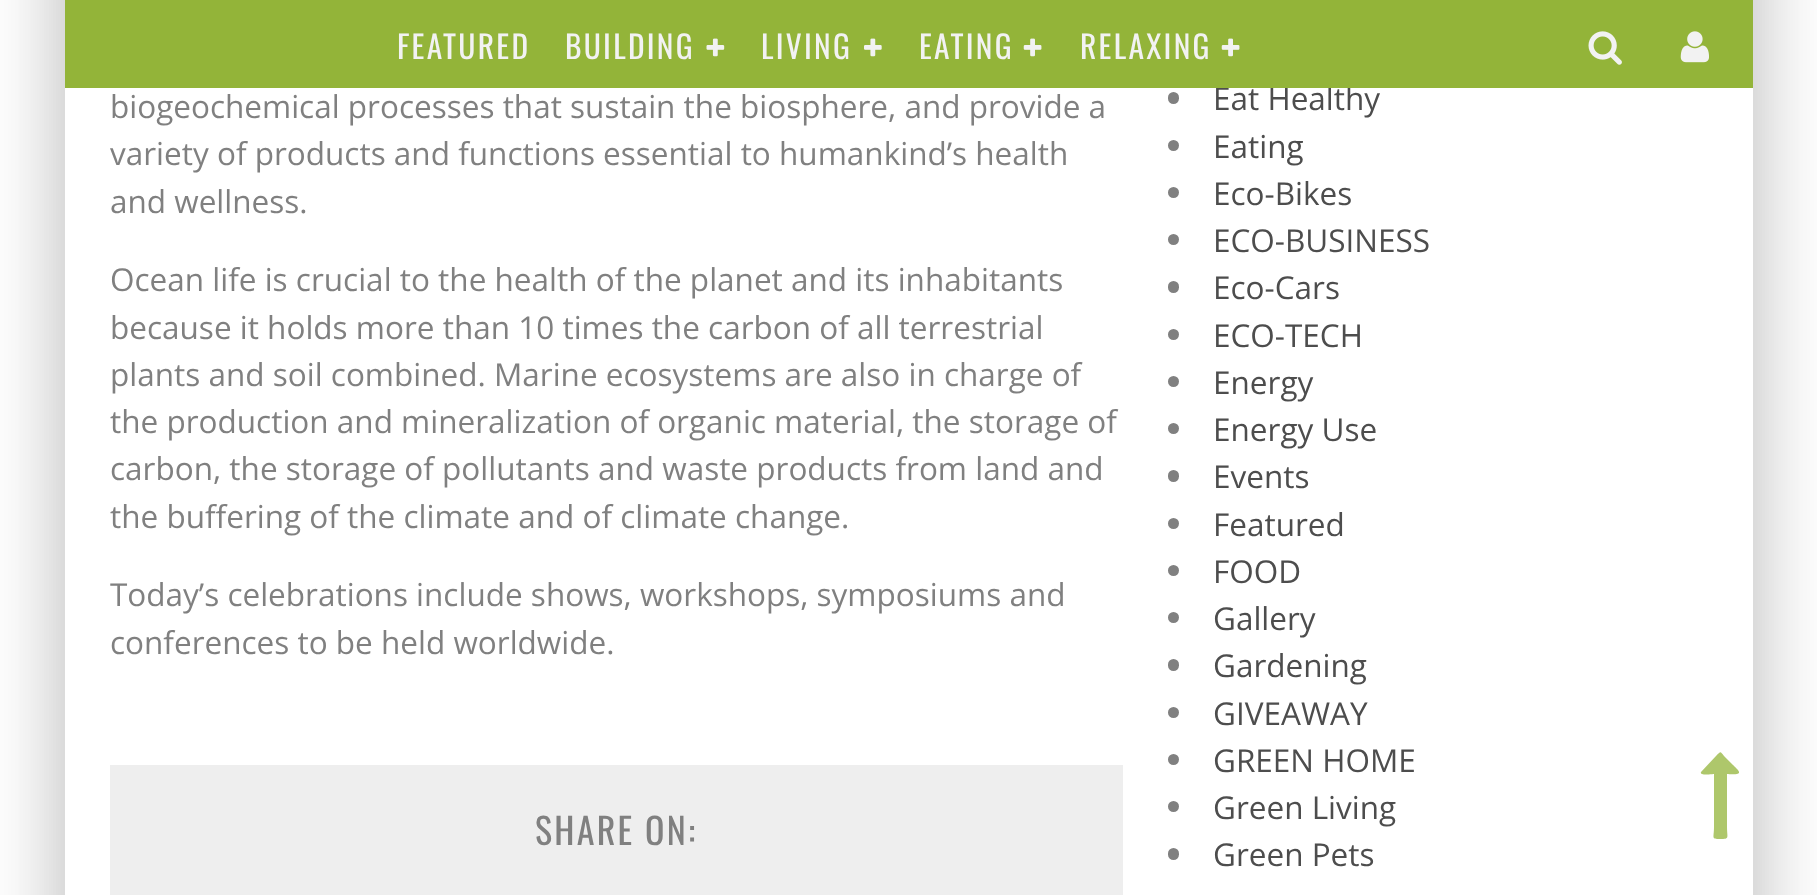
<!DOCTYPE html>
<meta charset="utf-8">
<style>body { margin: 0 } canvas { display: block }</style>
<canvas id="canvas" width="1817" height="895"></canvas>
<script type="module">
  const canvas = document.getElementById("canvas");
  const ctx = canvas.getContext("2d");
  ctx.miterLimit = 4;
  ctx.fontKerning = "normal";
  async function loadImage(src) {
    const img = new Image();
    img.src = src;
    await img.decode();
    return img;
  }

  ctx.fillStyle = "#ffffff";
  ctx.fillRect(0, 0, 1817, 895);
  ctx.fillStyle = "rgba(0, 0, 0, 0.15)";
  ctx.filter = "blur(34px)";
  ctx.beginPath();
  ctx.rect(43, -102, 1687, 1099);
  ctx.fill();
  ctx.filter = "none";
  ctx.filter = "blur(34px)";
  ctx.beginPath();
  ctx.rect(88, -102, 1687, 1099);
  ctx.fill();
  ctx.filter = "none";
  ctx.fillStyle = "#ffffff";
  ctx.fillRect(65, 88, 1688, 807);
  ctx.font = "31.5px Open Sans";
  ctx.fillStyle = "#4d4d4d";
  ctx.fillText("Eat Healthy", 1213, 110);
  ctx.fillStyle = "#93b439";
  ctx.fillRect(65, 0, 1688, 88);
  ctx.letterSpacing = "2.25px";
  ctx.font = "31.5px Oswald";
  ctx.fillStyle = "#f2f2f2";
  ctx.fillText("FEATURED", 397, 59);
  ctx.fillText("BUILDING", 565, 59);
  ctx.drawImage(await loadImage("img1.png"), 706, 38, 19, 19);
  ctx.fillText("LIVING", 761, 59);
  ctx.drawImage(await loadImage("img2.png"), 864, 38, 18, 19);
  ctx.fillText("EATING", 919, 59);
  ctx.drawImage(await loadImage("img3.png"), 1023, 38, 19, 19);
  ctx.fillText("RELAXING", 1080, 59);
  ctx.drawImage(await loadImage("img3.png"), 1221, 38, 19, 19);
  ctx.drawImage(await loadImage("img4.png"), 1588, 31, 34, 34);
  ctx.drawImage(await loadImage("img5.png"), 1680, 31, 29, 32);
  ctx.fillStyle = "#aec76b";
  ctx.beginPath();
  ctx.moveTo(1739, 773);
  ctx.bezierCurveTo(1738, 775, 1729, 774, 1727, 774);
  ctx.lineTo(1727, 827);
  ctx.bezierCurveTo(1727, 838, 1730, 839, 1720, 839);
  ctx.bezierCurveTo(1711, 839, 1714, 838, 1714, 827);
  ctx.lineTo(1714, 774);
  ctx.bezierCurveTo(1713, 774, 1699, 776, 1701, 772);
  ctx.lineTo(1716, 756);
  ctx.bezierCurveTo(1721, 751, 1720, 751, 1724, 756);
  ctx.lineTo(1733, 765);
  ctx.bezierCurveTo(1734, 766, 1740, 771, 1739, 773);
  ctx.closePath();
  ctx.fill();
  ctx.letterSpacing = "0px";
  ctx.font = "31.5px Open Sans";
  ctx.fillStyle = "#808080";
  ctx.fillText("biogeochemical processes that sustain the biosphere, and provide a", 110, 118);
  ctx.fillText("variety of products and functions essential to humankind’s health", 110, 165);
  ctx.fillText("and wellness.", 110, 213);
  ctx.fillText("Ocean life is crucial to the health of the planet and its inhabitants", 110, 291);
  ctx.fillText("because it holds more than 10 times the carbon of all terrestrial", 110, 339);
  ctx.fillText("plants and soil combined. Marine ecosystems are also in charge of", 110, 386);
  ctx.fillText("the production and mineralization of organic material, the storage of", 110, 433);
  ctx.fillText("carbon, the storage of pollutants and waste products from land and", 110, 480);
  ctx.fillText("the buffering of the climate and of climate change.", 110, 528);
  ctx.fillText("Today’s celebrations include shows, workshops, symposiums and", 110, 606);
  ctx.fillText("conferences to be held worldwide.", 110, 654);
  ctx.fillStyle = "#eeeeee";
  ctx.fillRect(110, 765, 1013, 130);
  ctx.letterSpacing = "2.25px";
  ctx.font = "36px Oswald";
  ctx.fillStyle = "#808080";
  ctx.fillText("SHARE ON:", 535, 845);
  ctx.beginPath();
  ctx.roundRect(1168, 92, 11, 12, 5.5);
  ctx.fill();
  ctx.beginPath();
  ctx.arc(1173.5, 145.5, 5.5, 0, Math.PI * 2);
  ctx.fill();
  ctx.letterSpacing = "0px";
  ctx.font = "31.5px Open Sans";
  ctx.fillStyle = "#4d4d4d";
  ctx.fillText("Eating", 1213, 158);
  ctx.fillStyle = "#808080";
  ctx.beginPath();
  ctx.arc(1173.5, 192.5, 5.5, 0, Math.PI * 2);
  ctx.fill();
  ctx.fillStyle = "#4d4d4d";
  ctx.fillText("Eco-Bikes", 1213, 205);
  ctx.fillStyle = "#808080";
  ctx.beginPath();
  ctx.arc(1173.5, 239.5, 5.5, 0, Math.PI * 2);
  ctx.fill();
  ctx.fillStyle = "#4d4d4d";
  ctx.fillText("ECO-BUSINESS", 1213, 252);
  ctx.fillStyle = "#808080";
  ctx.beginPath();
  ctx.roundRect(1168, 281, 11, 12, 5.5);
  ctx.fill();
  ctx.fillStyle = "#4d4d4d";
  ctx.fillText("Eco-Cars", 1213, 299);
  ctx.fillStyle = "#808080";
  ctx.beginPath();
  ctx.arc(1173.5, 334.5, 5.5, 0, Math.PI * 2);
  ctx.fill();
  ctx.fillStyle = "#4d4d4d";
  ctx.fillText("ECO-TECH", 1213, 347);
  ctx.fillStyle = "#808080";
  ctx.beginPath();
  ctx.arc(1173.5, 381.5, 5.5, 0, Math.PI * 2);
  ctx.fill();
  ctx.fillStyle = "#4d4d4d";
  ctx.fillText("Energy", 1213, 394);
  ctx.fillStyle = "#808080";
  ctx.beginPath();
  ctx.arc(1173.5, 428.5, 5.5, 0, Math.PI * 2);
  ctx.fill();
  ctx.fillStyle = "#4d4d4d";
  ctx.fillText("Energy Use", 1213, 441);
  ctx.fillStyle = "#808080";
  ctx.beginPath();
  ctx.roundRect(1168, 470, 11, 12, 5.5);
  ctx.fill();
  ctx.fillStyle = "#4d4d4d";
  ctx.fillText("Events", 1213, 488);
  ctx.fillStyle = "#808080";
  ctx.beginPath();
  ctx.arc(1173.5, 523.5, 5.5, 0, Math.PI * 2);
  ctx.fill();
  ctx.fillStyle = "#4d4d4d";
  ctx.fillText("Featured", 1213, 536);
  ctx.fillStyle = "#808080";
  ctx.beginPath();
  ctx.arc(1173.5, 570.5, 5.5, 0, Math.PI * 2);
  ctx.fill();
  ctx.fillStyle = "#4d4d4d";
  ctx.fillText("FOOD", 1213, 583);
  ctx.fillStyle = "#808080";
  ctx.beginPath();
  ctx.arc(1173.5, 617.5, 5.5, 0, Math.PI * 2);
  ctx.fill();
  ctx.fillStyle = "#4d4d4d";
  ctx.fillText("Gallery", 1213, 630);
  ctx.fillStyle = "#808080";
  ctx.beginPath();
  ctx.roundRect(1168, 659, 11, 12, 5.5);
  ctx.fill();
  ctx.fillStyle = "#4d4d4d";
  ctx.fillText("Gardening", 1213, 677);
  ctx.fillStyle = "#808080";
  ctx.beginPath();
  ctx.arc(1173.5, 712.5, 5.5, 0, Math.PI * 2);
  ctx.fill();
  ctx.fillStyle = "#4d4d4d";
  ctx.fillText("GIVEAWAY", 1213, 725);
  ctx.fillStyle = "#808080";
  ctx.beginPath();
  ctx.arc(1173.5, 759.5, 5.5, 0, Math.PI * 2);
  ctx.fill();
  ctx.fillStyle = "#4d4d4d";
  ctx.fillText("GREEN HOME", 1213, 772);
  ctx.fillStyle = "#808080";
  ctx.beginPath();
  ctx.arc(1173.5, 806.5, 5.5, 0, Math.PI * 2);
  ctx.fill();
  ctx.fillStyle = "#4d4d4d";
  ctx.fillText("Green Living", 1213, 819);
  ctx.fillStyle = "#808080";
  ctx.beginPath();
  ctx.roundRect(1168, 848, 11, 12, 5.5);
  ctx.fill();
  ctx.fillStyle = "#4d4d4d";
  ctx.fillText("Green Pets", 1213, 866);
</script>
